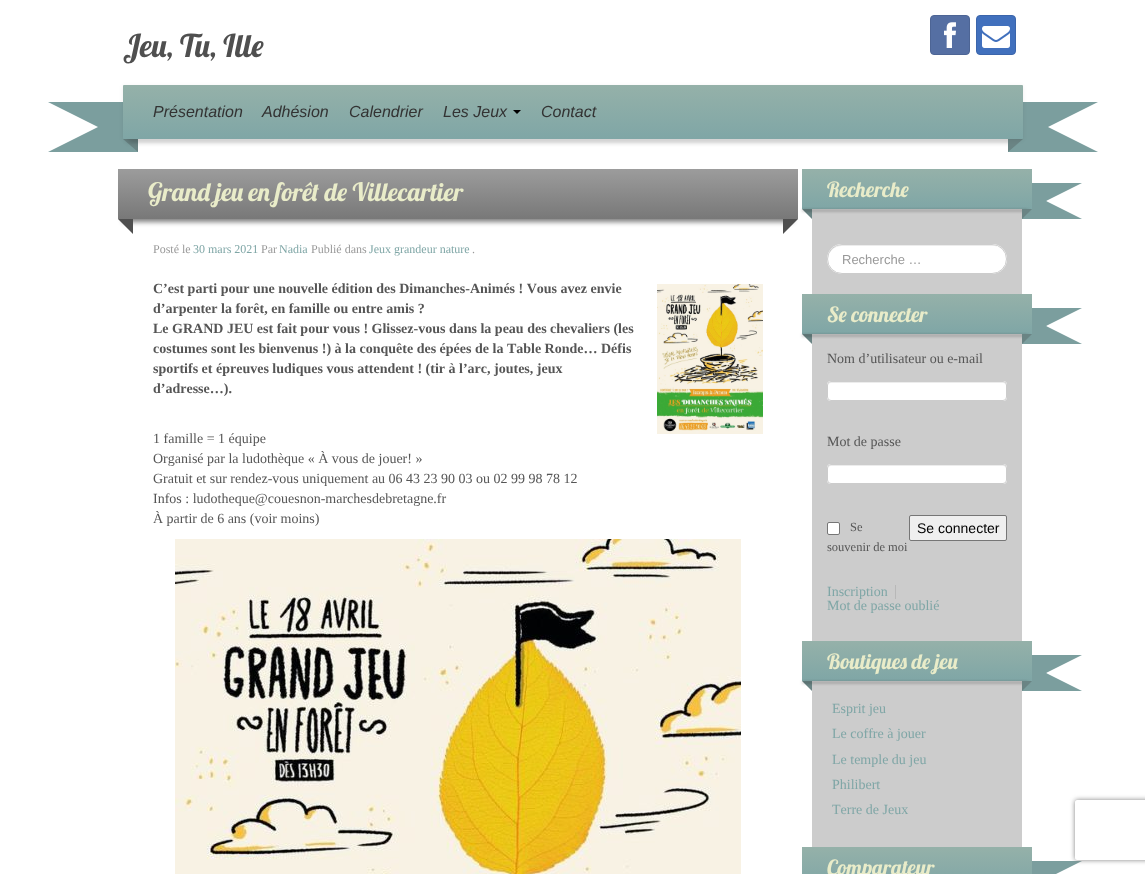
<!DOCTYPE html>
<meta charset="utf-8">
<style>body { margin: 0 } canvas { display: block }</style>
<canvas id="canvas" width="1145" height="874"></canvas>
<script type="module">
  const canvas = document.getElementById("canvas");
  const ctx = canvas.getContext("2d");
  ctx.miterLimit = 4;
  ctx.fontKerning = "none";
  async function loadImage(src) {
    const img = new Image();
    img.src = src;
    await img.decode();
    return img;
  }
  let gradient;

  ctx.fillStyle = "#ffffff";
  ctx.fillRect(0, 0, 1145, 874);
  ctx.font = "31.5px Lobster";
  ctx.fillStyle = "#4f4f4f";
  ctx.fillText("Jeu, Tu, Ille", 123, 57);
  ctx.fillStyle = "#556fa3";
  ctx.beginPath();
  ctx.roundRect(930.5, 15.5, 39, 39, 3.5);
  ctx.fill();
  ctx.strokeStyle = "#4d6595";
  ctx.stroke();
  ctx.drawImage(await loadImage("img1.png"), 944, 22, 12, 26);
  ctx.fillStyle = "#4170bd";
  ctx.beginPath();
  ctx.roundRect(976.5, 15.5, 39, 39, 3.5);
  ctx.fill();
  ctx.strokeStyle = "#3b65ab";
  ctx.stroke();
  ctx.drawImage(await loadImage("img2.png"), 982, 26, 28, 22);
  ctx.drawImage(await loadImage("img3.png"), 48, 102, 50, 50);
  ctx.fillStyle = "#7b9e9e";
  ctx.fillRect(98, 102, 40, 50);
  ctx.fillRect(1008, 102, 40, 50);
  ctx.fillStyle = "#6a8484";
  ctx.beginPath();
  ctx.moveTo(123, 139);
  ctx.lineTo(138, 139);
  ctx.lineTo(138, 152);
  ctx.closePath();
  ctx.fill();
  ctx.fillStyle = "rgba(0, 0, 0, 0.9)";
  ctx.filter = "blur(2.5px)";
  ctx.beginPath();
  ctx.rect(128, 140, 886, 1);
  ctx.fill();
  ctx.filter = "none";
  ctx.fillStyle = "#6a8484";
  ctx.beginPath();
  ctx.moveTo(1008, 152);
  ctx.lineTo(1008, 139);
  ctx.lineTo(1023, 139);
  ctx.closePath();
  ctx.fill();
  ctx.fillStyle = "rgba(0, 0, 0, 0.07)";
  ctx.filter = "blur(2px)";
  ctx.beginPath();
  ctx.roundRect(123, 86, 900, 54, 1);
  ctx.fill();
  ctx.filter = "none";
  gradient = ctx.createLinearGradient(573, 85, 573, 139);
  gradient.addColorStop(0, "#95b1a9");
  gradient.addColorStop(1, "#7fa6a6");
  ctx.fillStyle = gradient;
  ctx.beginPath();
  ctx.roundRect(123, 85, 900, 54, 1);
  ctx.fill();
  ctx.font = "italic 16px Liberation Sans";
  ctx.fillStyle = "#333333";
  ctx.fillText("Présentation", 153, 117);
  ctx.fillText("Adhésion", 262, 117);
  ctx.fillText("Calendrier", 349, 117);
  ctx.fillText("Les Jeux", 443, 117);
  ctx.fillStyle = "#000000";
  ctx.beginPath();
  ctx.moveTo(513, 110);
  ctx.lineTo(521, 110);
  ctx.lineTo(517, 114);
  ctx.closePath();
  ctx.fill();
  ctx.fillStyle = "#333333";
  ctx.fillText("Contact", 541, 117);
  ctx.drawImage(await loadImage("img4.png"), 1048, 102, 50, 50);
  ctx.fillStyle = "rgba(0, 0, 0, 0.5)";
  ctx.filter = "blur(2.5px)";
  ctx.beginPath();
  ctx.rect(123, 182, 670, 40);
  ctx.fill();
  ctx.filter = "none";
  gradient = ctx.createLinearGradient(458, 169, 458, 219);
  gradient.addColorStop(0, "#9c9c9c");
  gradient.addColorStop(1, "#787878");
  ctx.fillStyle = gradient;
  ctx.fillRect(118, 169, 680, 50);
  ctx.font = "25.25px Lobster";
  ctx.fillStyle = "#e9ecc9";
  ctx.fillText("Grand jeu en forêt de Villecartier", 148, 201);
  ctx.fillStyle = "#4f4f4f";
  ctx.beginPath();
  ctx.moveTo(133, 219);
  ctx.lineTo(133, 234);
  ctx.lineTo(118, 219);
  ctx.closePath();
  ctx.fill();
  ctx.beginPath();
  ctx.moveTo(783, 234);
  ctx.lineTo(783, 219);
  ctx.lineTo(798, 219);
  ctx.closePath();
  ctx.fill();
  ctx.font = "12px Liberation Serif";
  ctx.fillStyle = "#999999";
  ctx.fillText("Posté le", 153, 253);
  ctx.fillStyle = "#7fa6a6";
  ctx.fillText("30 mars 2021", 193, 253);
  ctx.fillStyle = "#999999";
  ctx.fillText("Par", 261, 253);
  ctx.fillStyle = "#7fa6a6";
  ctx.fillText("Nadia", 279, 253);
  ctx.fillStyle = "#999999";
  ctx.fillText("Publié dans", 311, 253);
  ctx.fillStyle = "#7fa6a6";
  ctx.fillText("Jeux grandeur nature", 369, 253);
  ctx.fillStyle = "#999999";
  ctx.fillText(".", 472, 253);
  ctx.font = "bold 14px Liberation Serif";
  ctx.fillStyle = "#555555";
  ctx.fillText("C’est parti pour une nouvelle édition des Dimanches-Animés ! Vous avez envie", 153, 293);
  ctx.drawImage(await loadImage("img5.png"), 657, 284, 106, 150);
  ctx.fillText("d’arpenter la forêt, en famille ou entre amis ?", 153, 313);
  ctx.fillText("Le GRAND JEU est fait pour vous ! Glissez-vous dans la peau des chevaliers (les", 153, 333);
  ctx.fillText("costumes sont les bienvenus !) à la conquête des épées de la Table Ronde… Défis", 153, 353);
  ctx.fillText("sportifs et épreuves ludiques vous attendent ! (tir à l’arc, joutes, jeux", 153, 373);
  ctx.fillText("d’adresse…).", 153, 393);
  ctx.font = "14px Liberation Serif";
  ctx.fillText("1 famille = 1 équipe", 153, 443);
  ctx.fillText("Organisé par la ludothèque « À vous de jouer! »", 153, 463);
  ctx.fillText("Gratuit et sur rendez-vous uniquement au 06 43 23 90 03 ou 02 99 98 78 12", 153, 483);
  ctx.fillText("Infos : ludotheque@couesnon-marchesdebretagne.fr", 153, 503);
  ctx.fillText("À partir de 6 ans (voir moins)", 153, 523);
  ctx.drawImage(await loadImage("img6.png"), 175, 539, 566, 335);
  ctx.fillStyle = "#cccccc";
  ctx.fillRect(812, 209, 210, 638);
  ctx.drawImage(await loadImage("img7.png"), 1022, 183, 60, 36);
  gradient = ctx.createLinearGradient(917, 169, 917, 209);
  gradient.addColorStop(0, "#95b1a9");
  gradient.addColorStop(1, "#7fa6a6");
  ctx.fillStyle = gradient;
  ctx.fillRect(802, 169, 230, 40);
  ctx.font = "21px Lobster";
  ctx.fillStyle = "#e9ecc9";
  ctx.fillText("Recherche", 827, 197);
  ctx.fillStyle = "#6a8484";
  ctx.beginPath();
  ctx.moveTo(802, 209);
  ctx.lineTo(812, 209);
  ctx.lineTo(812, 219);
  ctx.closePath();
  ctx.fill();
  ctx.fillStyle = "rgba(0, 0, 0, 0.5)";
  ctx.filter = "blur(1.5px)";
  ctx.beginPath();
  ctx.rect(802, 210, 226, 1);
  ctx.fill();
  ctx.filter = "none";
  ctx.fillStyle = "#6a8484";
  ctx.beginPath();
  ctx.moveTo(1022, 219);
  ctx.lineTo(1022, 209);
  ctx.lineTo(1032, 209);
  ctx.closePath();
  ctx.fill();
  ctx.fillStyle = "#ffffff";
  ctx.beginPath();
  ctx.roundRect(827, 244, 180, 30, 15);
  ctx.fill();
  ctx.fillStyle = "#ececec";
  ctx.beginPath();
  ctx.moveTo(842, 246);
  ctx.lineTo(995, 246);
  ctx.bezierCurveTo(1003, 248, 1007, 255, 1006, 262);
  ctx.bezierCurveTo(1006, 259, 1006, 256, 1005, 254);
  ctx.bezierCurveTo(999, 240, 976, 245, 967, 245);
  ctx.lineTo(867, 245);
  ctx.bezierCurveTo(857, 245, 826, 239, 828, 260);
  ctx.bezierCurveTo(828, 253, 833, 246, 842, 246);
  ctx.closePath();
  ctx.fill();
  ctx.beginPath();
  ctx.roundRect(827.5, 244.5, 179, 29, 14.5);
  ctx.strokeStyle = "#cccccc";
  ctx.stroke();
  ctx.font = "13px Liberation Sans";
  ctx.fillStyle = "#999999";
  ctx.fillText("Recherche …", 842, 264);
  ctx.drawImage(await loadImage("img7.png"), 1022, 308, 60, 36);
  gradient = ctx.createLinearGradient(917, 294, 917, 334);
  gradient.addColorStop(0, "#95b1a9");
  gradient.addColorStop(1, "#7fa6a6");
  ctx.fillStyle = gradient;
  ctx.fillRect(802, 294, 230, 40);
  ctx.font = "21px Lobster";
  ctx.fillStyle = "#e9ecc9";
  ctx.fillText("Se connecter", 827, 322);
  ctx.fillStyle = "#6a8484";
  ctx.beginPath();
  ctx.moveTo(802, 334);
  ctx.lineTo(812, 334);
  ctx.lineTo(812, 344);
  ctx.closePath();
  ctx.fill();
  ctx.fillStyle = "rgba(0, 0, 0, 0.5)";
  ctx.filter = "blur(1.5px)";
  ctx.beginPath();
  ctx.rect(802, 335, 226, 1);
  ctx.fill();
  ctx.filter = "none";
  ctx.fillStyle = "#6a8484";
  ctx.beginPath();
  ctx.moveTo(1022, 344);
  ctx.lineTo(1022, 334);
  ctx.lineTo(1032, 334);
  ctx.closePath();
  ctx.fill();
  ctx.font = "14px Liberation Serif";
  ctx.fillStyle = "#555555";
  ctx.fillText("Nom d’utilisateur ou e-mail", 827, 363);
  ctx.fillStyle = "#ffffff";
  ctx.beginPath();
  ctx.roundRect(827, 381, 180, 20, 4);
  ctx.fill();
  ctx.fillStyle = "#ececec";
  ctx.beginPath();
  ctx.moveTo(831, 383);
  ctx.lineTo(1003, 383);
  ctx.bezierCurveTo(1005, 383, 1006, 384, 1006, 386);
  ctx.lineTo(1006, 385);
  ctx.bezierCurveTo(1006, 383, 1005, 382, 1003, 382);
  ctx.lineTo(831, 382);
  ctx.bezierCurveTo(829, 382, 828, 383, 828, 385);
  ctx.lineTo(828, 386);
  ctx.bezierCurveTo(828, 384, 829, 383, 831, 383);
  ctx.closePath();
  ctx.fill();
  ctx.beginPath();
  ctx.roundRect(827.5, 381.5, 179, 19, 3.5);
  ctx.stroke();
  ctx.fillStyle = "#555555";
  ctx.fillText("Mot de passe", 827, 446);
  ctx.fillStyle = "#ffffff";
  ctx.beginPath();
  ctx.roundRect(827, 464, 180, 20, 4);
  ctx.fill();
  ctx.fillStyle = "#ececec";
  ctx.beginPath();
  ctx.moveTo(831, 466);
  ctx.lineTo(1003, 466);
  ctx.bezierCurveTo(1005, 466, 1006, 467, 1006, 469);
  ctx.lineTo(1006, 468);
  ctx.bezierCurveTo(1006, 466, 1005, 465, 1003, 465);
  ctx.lineTo(831, 465);
  ctx.bezierCurveTo(829, 465, 828, 466, 828, 468);
  ctx.lineTo(828, 469);
  ctx.bezierCurveTo(828, 467, 829, 466, 831, 466);
  ctx.closePath();
  ctx.fill();
  ctx.beginPath();
  ctx.roundRect(827.5, 464.5, 179, 19, 3.5);
  ctx.stroke();
  ctx.fillStyle = "#ffffff";
  ctx.beginPath();
  ctx.roundRect(827.5, 522.5, 12, 12, 1.5);
  ctx.fill();
  ctx.strokeStyle = "#767676";
  ctx.stroke();
  ctx.font = "12.5px Liberation Serif";
  ctx.fillStyle = "#555555";
  ctx.fillText("Se", 850, 531);
  ctx.fillText("souvenir de moi", 827, 551);
  ctx.fillStyle = "#efefef";
  ctx.beginPath();
  ctx.roundRect(909.5, 515.5, 97, 25, 1.5);
  ctx.fill();
  ctx.stroke();
  ctx.font = "14px Liberation Sans";
  ctx.fillStyle = "#000000";
  ctx.fillText("Se connecter", 917, 533);
  ctx.fillStyle = "#b8b8b8";
  ctx.fillRect(895, 585, 1, 14);
  ctx.font = "14px Liberation Serif";
  ctx.fillStyle = "#7fa6a6";
  ctx.fillText("Inscription", 827, 596);
  ctx.fillText("Mot de passe oublié", 827, 610);
  ctx.drawImage(await loadImage("img7.png"), 1022, 655, 60, 36);
  gradient = ctx.createLinearGradient(917, 641, 917, 681);
  gradient.addColorStop(0, "#95b1a9");
  gradient.addColorStop(1, "#7fa6a6");
  ctx.fillStyle = gradient;
  ctx.fillRect(802, 641, 230, 40);
  ctx.font = "21px Lobster";
  ctx.fillStyle = "#e9ecc9";
  ctx.fillText("Boutiques de jeu", 827, 669);
  ctx.fillStyle = "#6a8484";
  ctx.beginPath();
  ctx.moveTo(802, 681);
  ctx.lineTo(812, 681);
  ctx.lineTo(812, 691);
  ctx.closePath();
  ctx.fill();
  ctx.fillStyle = "rgba(0, 0, 0, 0.5)";
  ctx.filter = "blur(1.5px)";
  ctx.beginPath();
  ctx.rect(802, 682, 226, 1);
  ctx.fill();
  ctx.filter = "none";
  ctx.fillStyle = "#6a8484";
  ctx.beginPath();
  ctx.moveTo(1022, 691);
  ctx.lineTo(1022, 681);
  ctx.lineTo(1032, 681);
  ctx.closePath();
  ctx.fill();
  ctx.font = "14px Liberation Serif";
  ctx.fillStyle = "#7fa6a6";
  ctx.fillText("Esprit jeu", 832, 713);
  ctx.fillText("Le coffre à jouer", 832, 738);
  ctx.fillText("Le temple du jeu", 832, 764);
  ctx.fillText("Philibert", 832, 789);
  ctx.fillText("Terre de Jeux", 832, 814);
  gradient = ctx.createLinearGradient(917, 847, 917, 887);
  gradient.addColorStop(0, "#95b1a9");
  gradient.addColorStop(1, "#7fa6a6");
  ctx.fillStyle = gradient;
  ctx.fillRect(802, 847, 230, 27);
  ctx.font = "21px Lobster";
  ctx.fillStyle = "#e9ecc9";
  ctx.fillText("Comparateur", 827, 875);
  ctx.drawImage(await loadImage("img8.png"), 1032, 861, 50, 13);
  ctx.save();
  ctx.beginPath();
  ctx.moveTo(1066, 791);
  ctx.lineTo(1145, 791);
  ctx.lineTo(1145, 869);
  ctx.lineTo(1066, 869);
  ctx.closePath();
  ctx.moveTo(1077, 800);
  ctx.lineTo(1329, 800);
  ctx.bezierCurveTo(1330, 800, 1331, 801, 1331, 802);
  ctx.lineTo(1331, 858);
  ctx.bezierCurveTo(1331, 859, 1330, 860, 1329, 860);
  ctx.lineTo(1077, 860);
  ctx.bezierCurveTo(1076, 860, 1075, 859, 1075, 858);
  ctx.lineTo(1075, 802);
  ctx.bezierCurveTo(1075, 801, 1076, 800, 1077, 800);
  ctx.closePath();
  ctx.clip("evenodd");
  ctx.fillStyle = "#808080";
  ctx.filter = "blur(2.5px)";
  ctx.beginPath();
  ctx.roundRect(1075, 800, 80, 60, 2);
  ctx.fill();
  ctx.filter = "none";
  ctx.restore();
</script>
